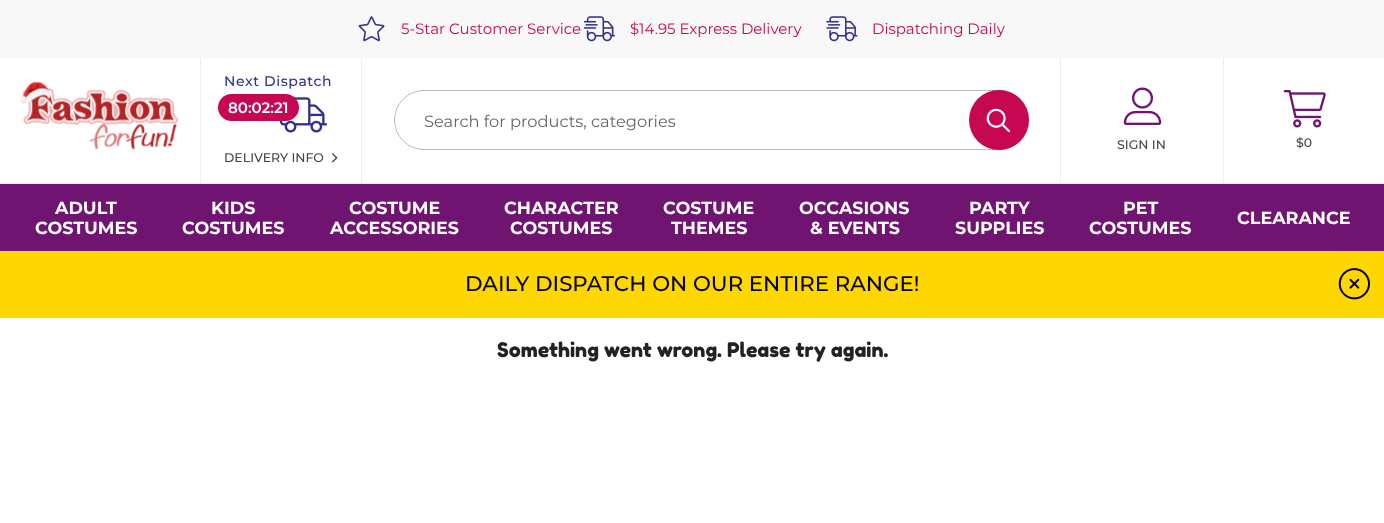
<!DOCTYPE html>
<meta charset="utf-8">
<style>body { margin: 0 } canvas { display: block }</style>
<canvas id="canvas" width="1384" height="523"></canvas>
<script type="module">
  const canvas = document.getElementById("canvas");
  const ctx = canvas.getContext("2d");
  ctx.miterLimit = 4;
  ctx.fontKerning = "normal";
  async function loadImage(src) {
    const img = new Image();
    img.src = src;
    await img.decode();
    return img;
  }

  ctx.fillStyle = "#ffffff";
  ctx.fillRect(0, 0, 1384, 523);
  ctx.fillStyle = "#eeeeee";
  ctx.fillRect(0, 183, 1384, 1);
  ctx.fillStyle = "#f8f8f8";
  ctx.fillRect(0, 0, 1384, 58);
  ctx.drawImage(await loadImage("img1.png"), 358, 16, 27, 26);
  ctx.font = "100 15px 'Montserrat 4'";
  ctx.fillStyle = "#c60751";
  ctx.fillText("5-Star Customer Service", 401, 34);
  ctx.drawImage(await loadImage("img2.png"), 583, 16, 32, 26);
  ctx.fillText("$14.95 Express Delivery", 630, 34);
  ctx.drawImage(await loadImage("img3.png"), 826, 16, 32, 26);
  ctx.fillText("Dispatching Daily", 872, 34);
  ctx.drawImage(await loadImage("img4.png"), 20, 81, 159, 69);
  ctx.fillStyle = "#eeeeee";
  ctx.fillRect(361, 58, 1, 125);
  ctx.fillRect(200, 58, 1, 125);
  ctx.letterSpacing = "0.6px";
  ctx.font = "100 14px Montserrat";
  ctx.fillStyle = "#323091";
  ctx.fillText("Next Dispatch", 224, 86);
  ctx.drawImage(await loadImage("img5.png"), 280, 97, 47, 36);
  ctx.fillStyle = "#c60751";
  ctx.beginPath();
  ctx.roundRect(218, 94, 81, 27, 13.5);
  ctx.fill();
  ctx.letterSpacing = "0px";
  ctx.font = "100 15px 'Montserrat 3'";
  ctx.fillStyle = "#ffffff";
  ctx.fillText("80:02:21", 228, 113);
  ctx.font = "100 12.5px Montserrat";
  ctx.fillStyle = "#444444";
  ctx.fillText("DELIVERY INFO", 224, 162);
  ctx.drawImage(await loadImage("img6.png"), 332, 153, 6, 10);
  ctx.beginPath();
  ctx.roundRect(394.5, 90.5, 634, 59, 29.5);
  ctx.strokeStyle = "#bbbbbb";
  ctx.stroke();
  ctx.font = "100 16.25px 'Montserrat 4'";
  ctx.fillStyle = "#666666";
  ctx.fillText("Search for products, categories", 424, 127);
  ctx.fillStyle = "#c60751";
  ctx.beginPath();
  ctx.arc(999, 120, 30, 0, Math.PI * 2);
  ctx.fill();
  ctx.drawImage(await loadImage("img7.png"), 986, 108, 25, 25);
  ctx.fillStyle = "#eeeeee";
  ctx.fillRect(1060, 58, 1, 125);
  ctx.drawImage(await loadImage("img8.png"), 1123, 87, 39, 38);
  ctx.font = "100 12.5px Montserrat";
  ctx.fillStyle = "#444444";
  ctx.fillText("SIGN IN", 1117, 149);
  ctx.fillStyle = "#eeeeee";
  ctx.fillRect(1223, 58, 1, 125);
  ctx.drawImage(await loadImage("img9.png"), 1283, 90, 43, 38);
  ctx.fillStyle = "#444444";
  ctx.fillText("$0", 1296, 147);
  ctx.fillStyle = "#701471";
  ctx.fillRect(0, 184, 1384, 67);
  ctx.font = "100 17.5px 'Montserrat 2'";
  ctx.fillStyle = "#ffffff";
  ctx.fillText("ADULT", 55, 214);
  ctx.fillText("COSTUMES", 35, 234);
  ctx.fillText("KIDS", 211, 214);
  ctx.fillText("COSTUMES", 182, 234);
  ctx.fillText("COSTUME", 349, 214);
  ctx.fillText("ACCESSORIES", 330, 234);
  ctx.fillText("CHARACTER", 504, 214);
  ctx.fillText("COSTUMES", 510, 234);
  ctx.fillText("COSTUME", 663, 214);
  ctx.fillText("THEMES", 671, 234);
  ctx.fillText("OCCASIONS", 799, 214);
  ctx.fillText("& EVENTS", 810, 234);
  ctx.fillText("PARTY", 969, 214);
  ctx.fillText("SUPPLIES", 955, 234);
  ctx.fillText("PET", 1123, 214);
  ctx.fillText("COSTUMES", 1089, 234);
  ctx.fillText("CLEARANCE", 1237, 224);
  ctx.fillStyle = "#ffd700";
  ctx.fillRect(0, 251, 1384, 67);
  ctx.font = "100 21.25px Montserrat";
  ctx.fillStyle = "#000000";
  ctx.fillText("DAILY DISPATCH ON OUR ENTIRE RANGE!", 465, 291);
  ctx.drawImage(await loadImage("img10.png"), 1338, 268, 32, 32);
  ctx.font = "20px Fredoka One";
  ctx.fillStyle = "#222222";
  ctx.fillText("Something went wrong. Please try again.", 497, 357);
</script>
